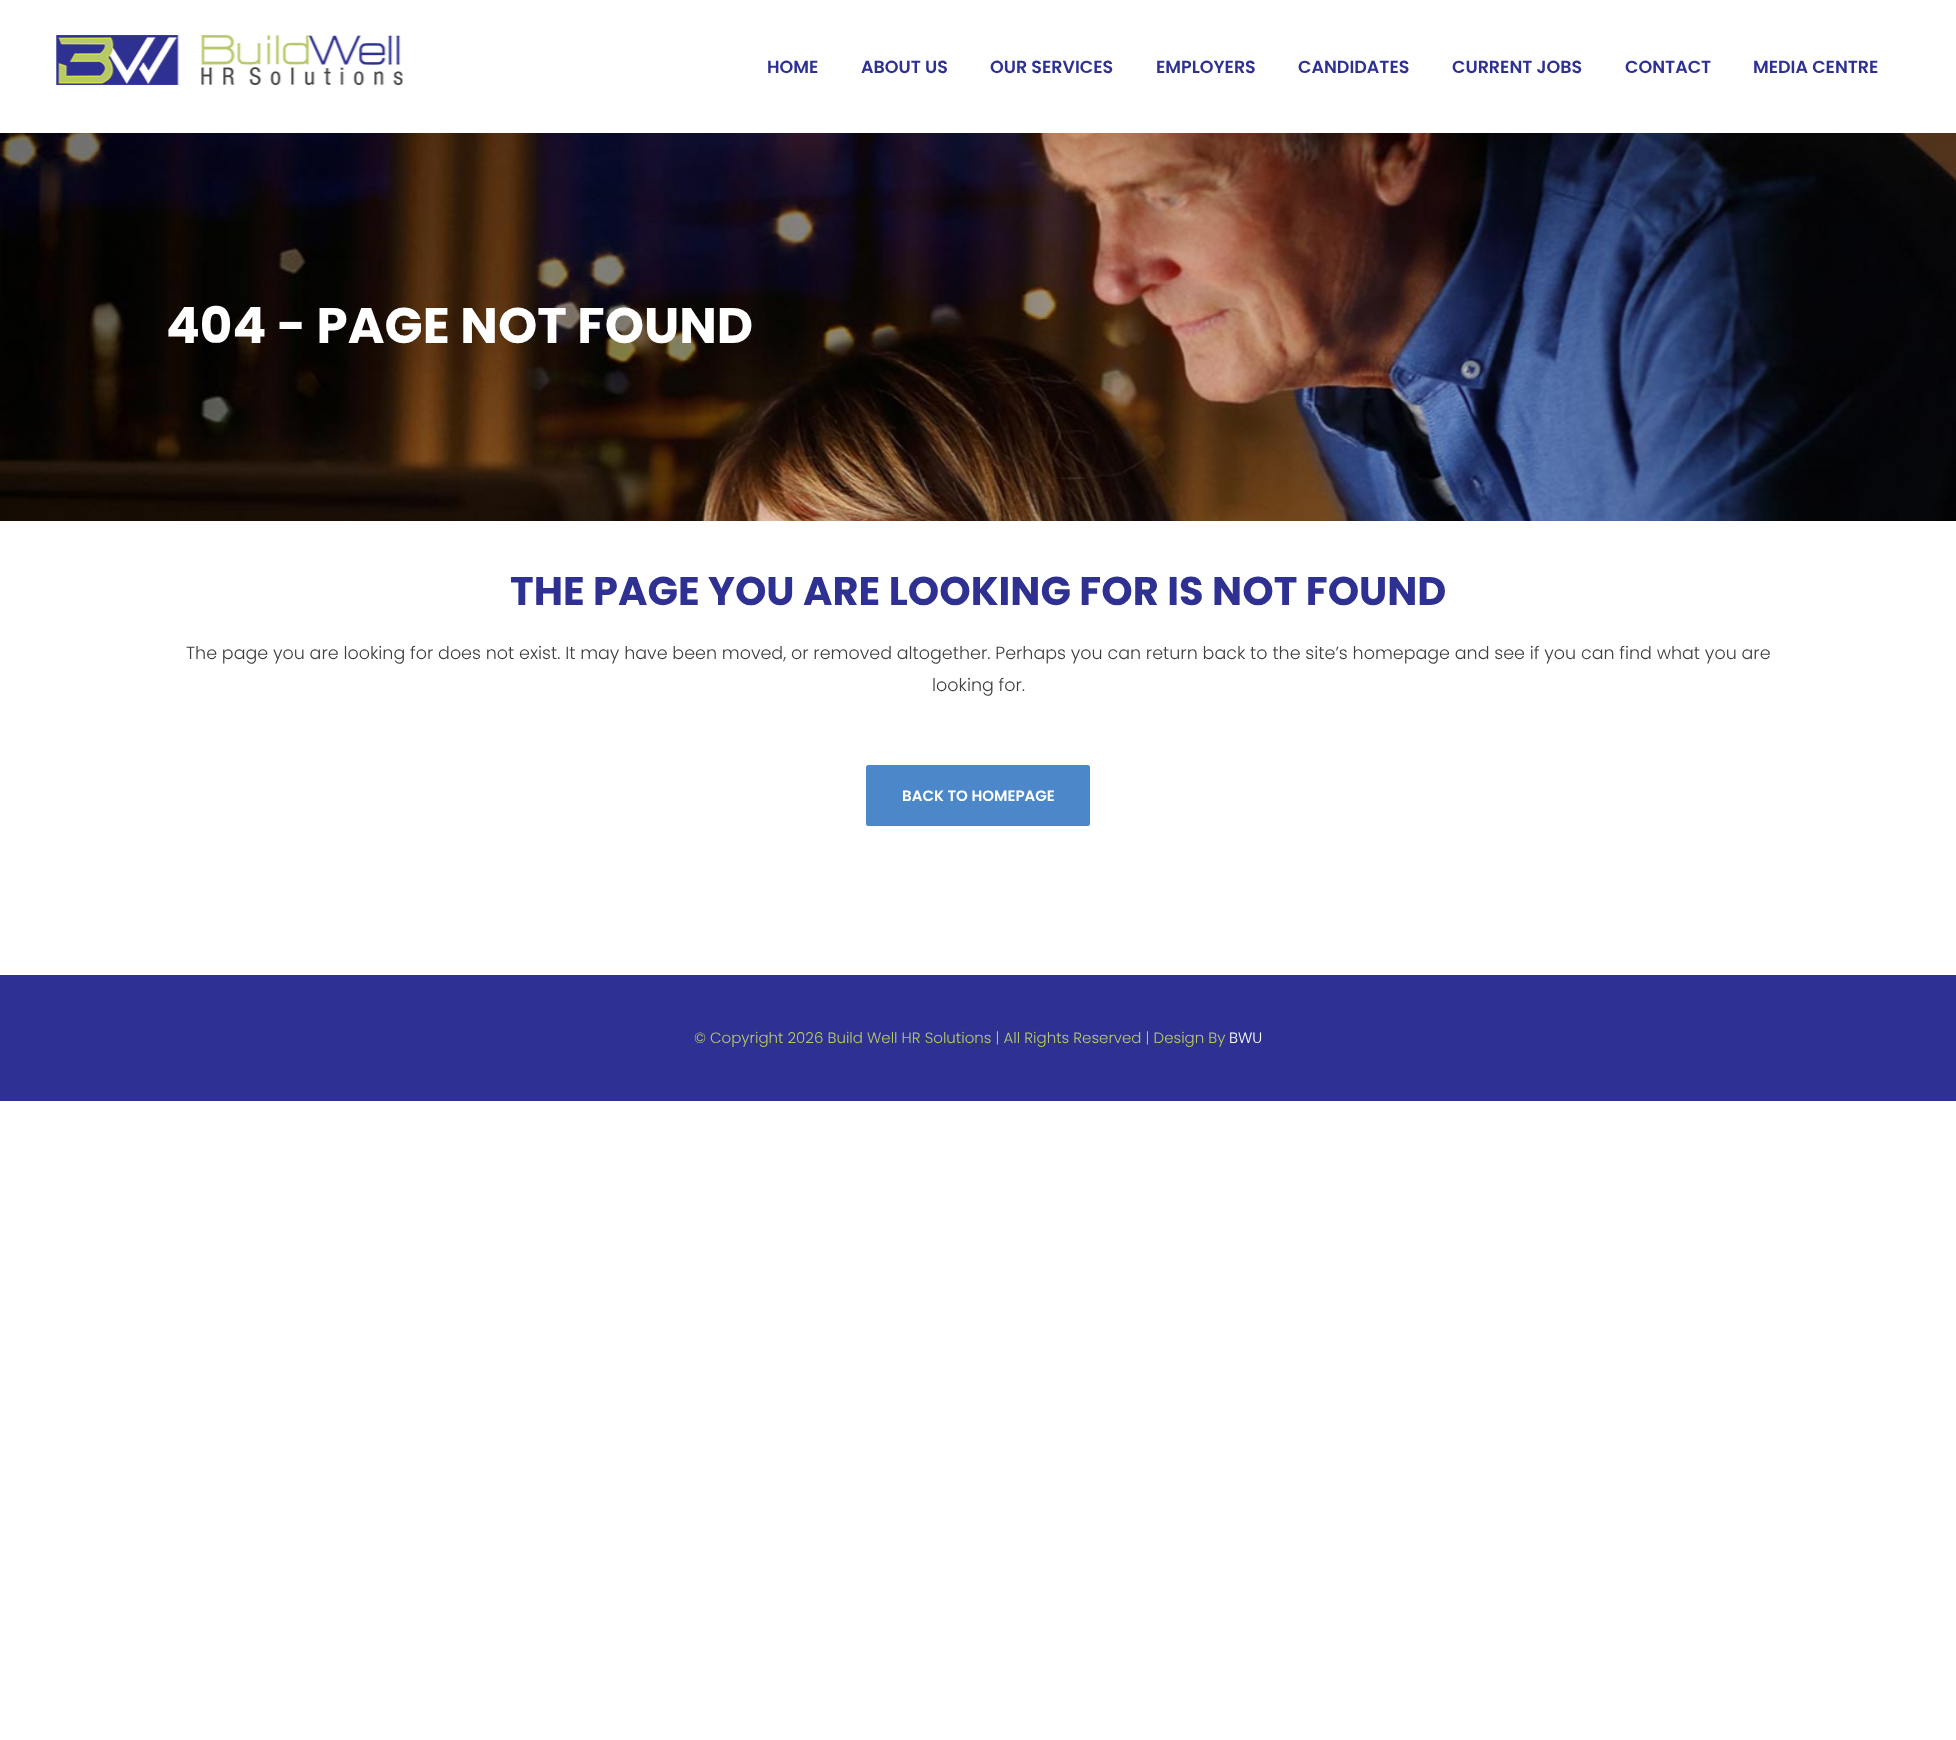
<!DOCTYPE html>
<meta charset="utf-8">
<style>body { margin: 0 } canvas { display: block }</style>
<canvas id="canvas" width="1956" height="1740"></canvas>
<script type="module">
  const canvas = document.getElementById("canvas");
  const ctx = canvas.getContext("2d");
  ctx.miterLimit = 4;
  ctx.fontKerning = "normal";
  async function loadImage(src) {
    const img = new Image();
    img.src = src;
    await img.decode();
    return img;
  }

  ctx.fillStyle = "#ffffff";
  ctx.fillRect(0, 0, 1956, 1740);
  ctx.drawImage(await loadImage("img1.png"), 56, 35, 347, 50);
  ctx.font = "600 17.5px Poppins";
  ctx.fillStyle = "#2e3192";
  ctx.fillText("HOME", 767, 73);
  ctx.fillText("ABOUT US", 861, 73);
  ctx.fillText("OUR SERVICES", 990, 73);
  ctx.fillText("EMPLOYERS", 1156, 73);
  ctx.fillText("CANDIDATES", 1298, 73);
  ctx.fillText("CURRENT JOBS", 1452, 73);
  ctx.fillText("CONTACT", 1625, 73);
  ctx.fillText("MEDIA CENTRE", 1753, 73);
  ctx.drawImage(await loadImage("img2.png"), 0, 133, 1956, 388);
  ctx.font = "bold 50px Poppins";
  ctx.fillStyle = "#ffffff";
  ctx.fillText("404 - PAGE NOT FOUND", 166, 343);
  ctx.font = "bold 40px Poppins";
  ctx.fillStyle = "#2e3192";
  ctx.fillText("THE PAGE YOU ARE LOOKING FOR IS NOT FOUND", 510, 605);
  ctx.font = "300 17.5px Poppins";
  ctx.fillStyle = "#3e3e3e";
  ctx.fillText("The page you are looking for does not exist. It may have been moved, or removed altogether. Perhaps you can return back to the site’s homepage and see if you can find what you are", 186, 659);
  ctx.fillText("looking for.", 932, 691);
  ctx.fillStyle = "#4c87ca";
  ctx.beginPath();
  ctx.roundRect(866, 765, 224, 61, 2.5);
  ctx.fill();
  ctx.font = "600 15px Poppins";
  ctx.fillStyle = "#ffffff";
  ctx.fillText("BACK TO HOMEPAGE", 902, 801);
  ctx.fillStyle = "#2e3192";
  ctx.fillRect(0, 975, 1956, 126);
  ctx.font = "300 15px Poppins";
  ctx.fillStyle = "#b8c968";
  ctx.fillText("© Copyright 2026 Build Well HR Solutions | All Rights Reserved | Design By", 694, 1043);
  ctx.fillStyle = "#ffffff";
  ctx.fillText("BWU", 1229, 1043);
</script>
